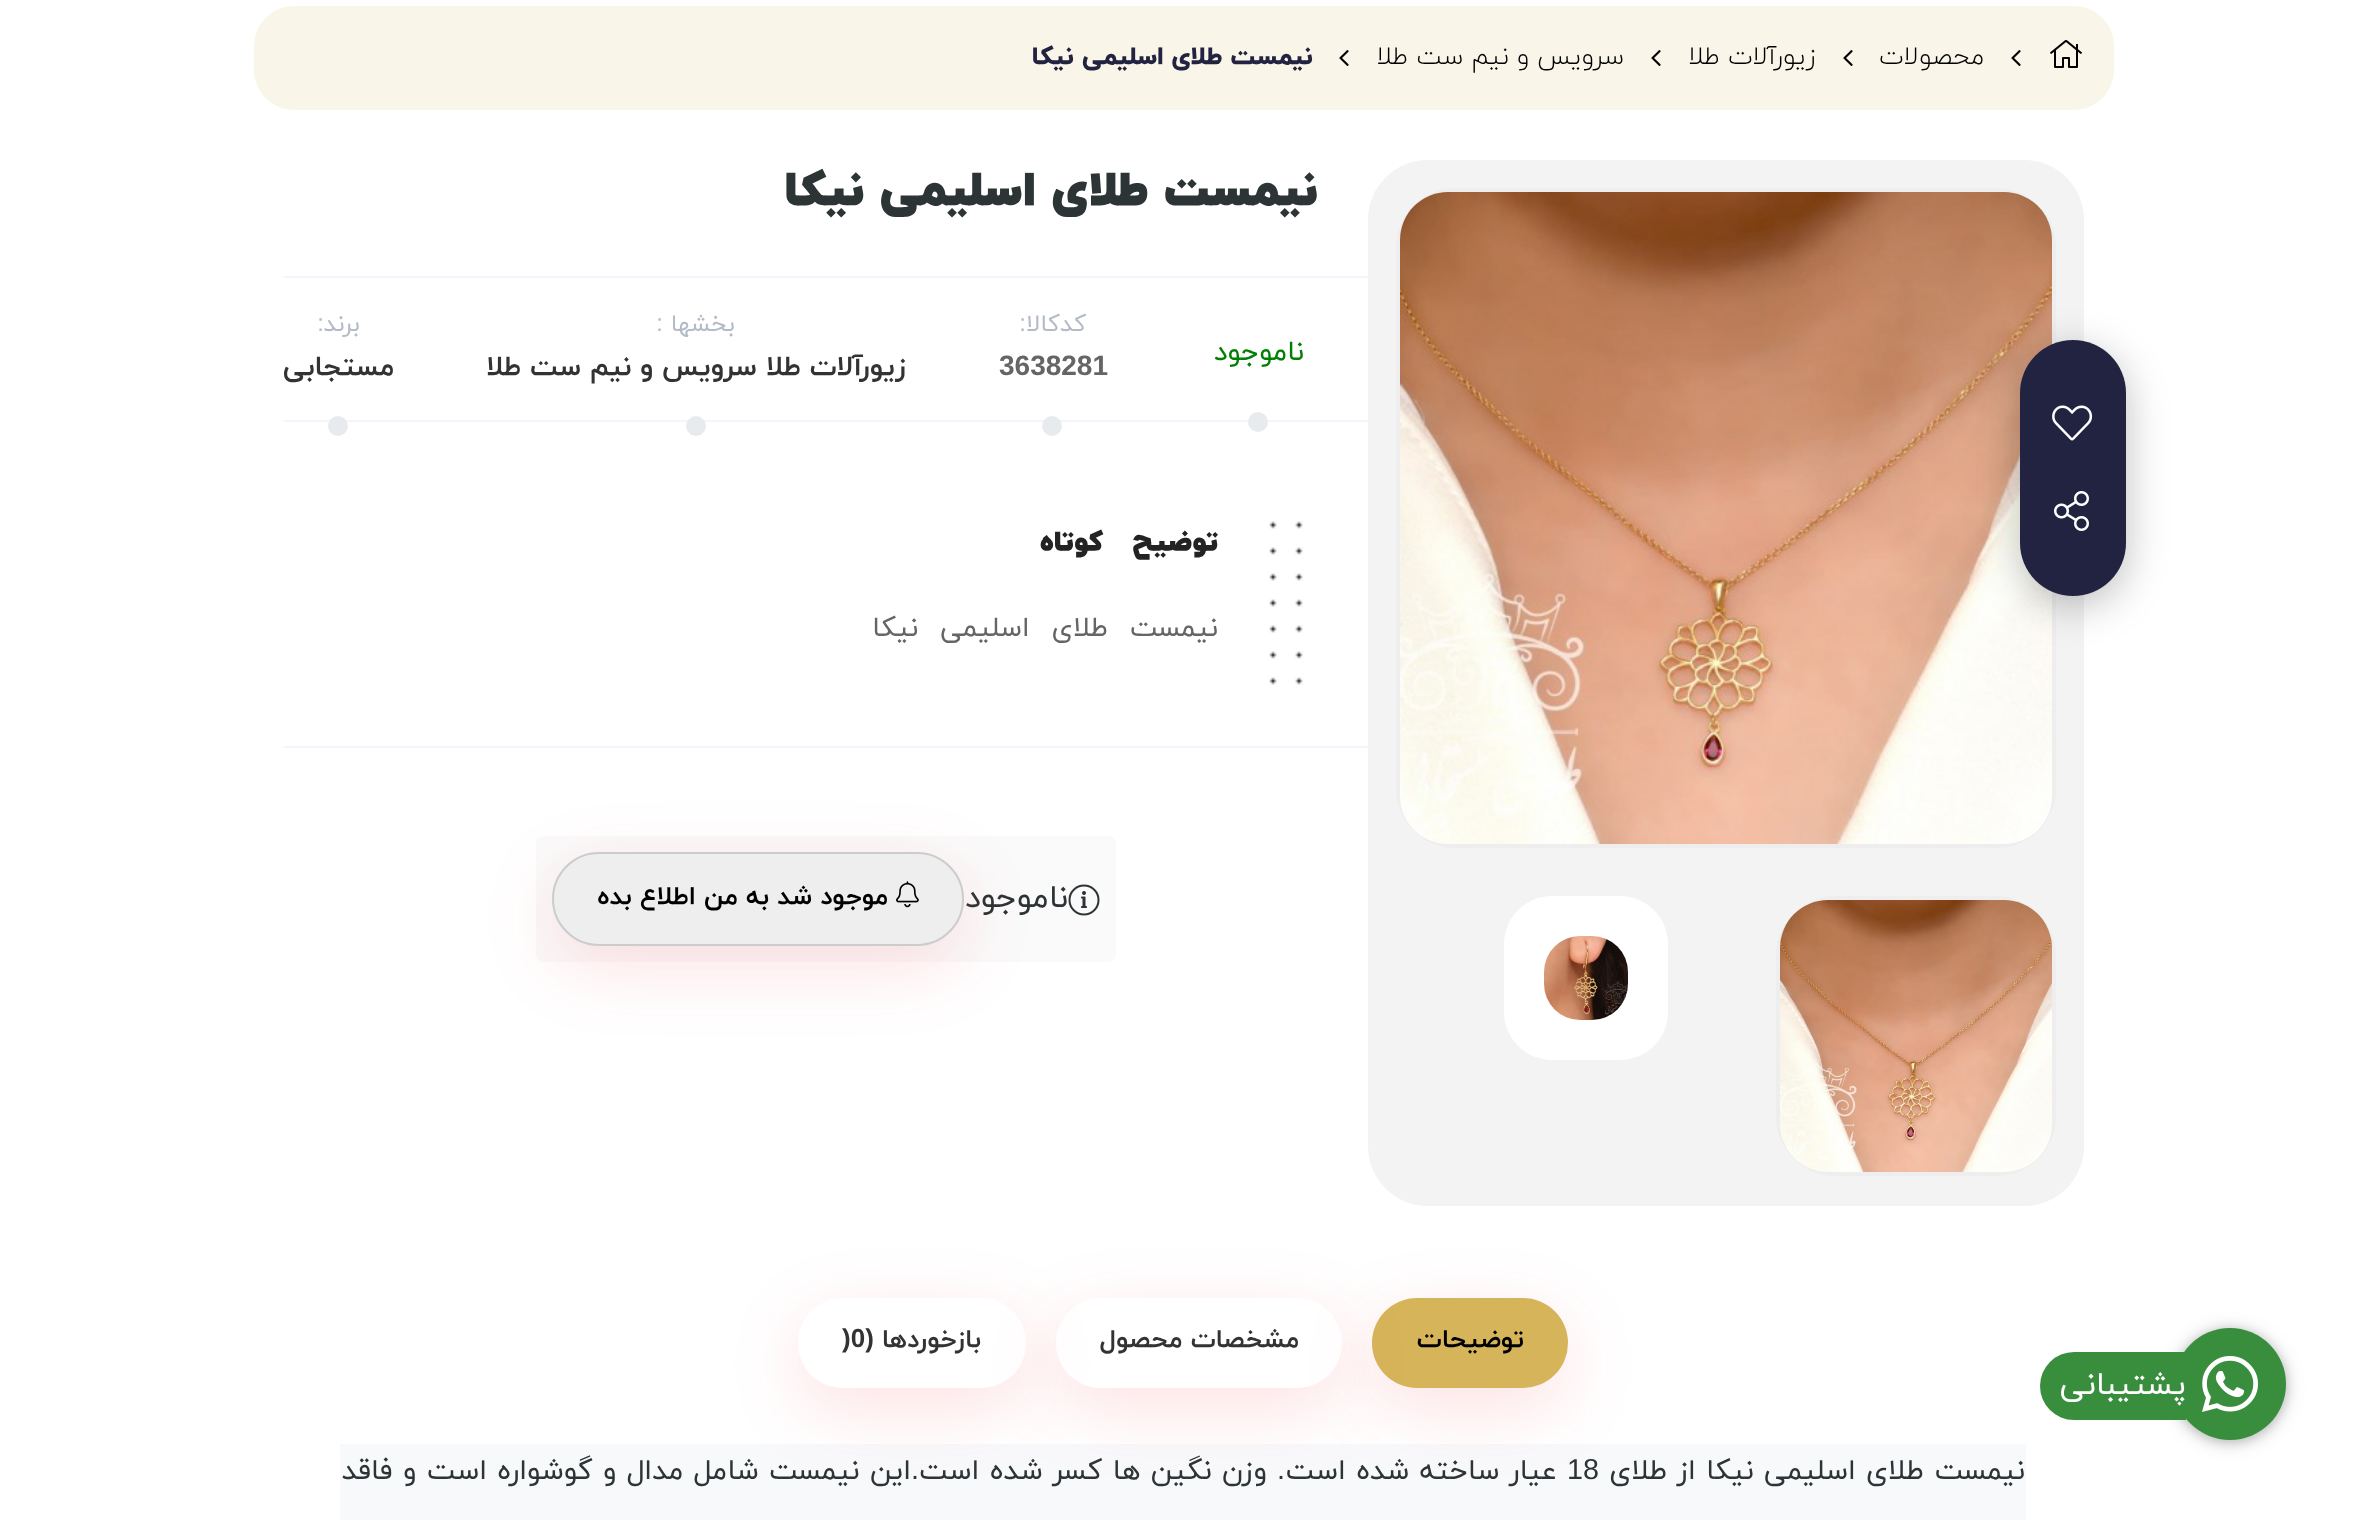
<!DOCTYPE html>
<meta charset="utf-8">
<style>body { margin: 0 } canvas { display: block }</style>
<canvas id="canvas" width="2365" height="1520"></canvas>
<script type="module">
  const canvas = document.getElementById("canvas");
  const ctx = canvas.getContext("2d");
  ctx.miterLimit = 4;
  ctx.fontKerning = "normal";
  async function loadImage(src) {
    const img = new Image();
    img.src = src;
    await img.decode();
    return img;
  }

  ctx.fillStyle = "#ffffff";
  ctx.fillRect(0, 0, 2365, 1520);
  ctx.fillStyle = "rgba(0, 0, 0, 0.15)";
  ctx.filter = "blur(10px)";
  ctx.beginPath();
  ctx.roundRect(2174, 1330, 112, 112, 56);
  ctx.fill();
  ctx.filter = "none";
  ctx.fillStyle = "rgba(0, 0, 0, 0.2)";
  ctx.filter = "blur(6px)";
  ctx.beginPath();
  ctx.roundRect(2174, 1330, 112, 112, 56);
  ctx.fill();
  ctx.filter = "none";
  ctx.fillStyle = "#388e3c";
  ctx.beginPath();
  ctx.arc(2230, 1384, 56, 0, Math.PI * 2);
  ctx.fill();
  ctx.drawImage(await loadImage("img1.png"), 2202, 1356, 56, 56);
  ctx.beginPath();
  ctx.roundRect(2040, 1352, 146, 68, [34, 0, 0, 34]);
  ctx.fill();
  ctx.direction = "rtl";
  ctx.font = "32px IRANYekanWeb";
  ctx.fillStyle = "#ffffff";
  ctx.fillText("پشتیبانی", 2186, 1394);
  ctx.fillStyle = "#faf5e9";
  ctx.beginPath();
  ctx.roundRect(254, 6, 1860, 104, 40);
  ctx.fill();
  ctx.drawImage(await loadImage("img2.png"), 2050, 40, 32, 28);
  ctx.drawImage(await loadImage("img3.png"), 2011, 50, 10, 16);
  ctx.font = "300 25.6px IRANYekanWeb";
  ctx.fillStyle = "#000000";
  ctx.fillText("محصولات", 1984, 64);
  ctx.drawImage(await loadImage("img3.png"), 1843, 50, 10, 16);
  ctx.fillText("زیورآلات طلا", 1816, 64);
  ctx.drawImage(await loadImage("img3.png"), 1651, 50, 10, 16);
  ctx.fillText("سرویس و نیم ست طلا", 1624, 64);
  ctx.drawImage(await loadImage("img3.png"), 1339, 50, 10, 16);
  ctx.font = "800 25.6px IRANYekanWeb";
  ctx.fillStyle = "#212341";
  ctx.fillText("نیمست طلای اسلیمی نیکا", 1313, 64);
  ctx.fillStyle = "#f3f3f3";
  ctx.beginPath();
  ctx.roundRect(1368, 160, 716, 1046, 60);
  ctx.fill();
  ctx.beginPath();
  ctx.roundRect(1398, 190, 656, 656, 58);
  ctx.strokeStyle = "#eeeeee";
  ctx.lineWidth = 4;
  ctx.stroke();
  ctx.drawImage(await loadImage("img4.png"), 1400, 192, 652, 652);
  ctx.beginPath();
  ctx.roundRect(1778, 898, 276, 276, 58);
  ctx.stroke();
  ctx.drawImage(await loadImage("img5.png"), 1780, 900, 272, 272);
  ctx.fillStyle = "#ffffff";
  ctx.beginPath();
  ctx.roundRect(1504, 896, 164, 164, 48);
  ctx.fill();
  ctx.drawImage(await loadImage("img6.png"), 1544, 936, 84, 84);
  ctx.fillStyle = "rgba(0, 0, 0, 0.25)";
  ctx.filter = "blur(20px)";
  ctx.beginPath();
  ctx.roundRect(2020, 350, 106, 256, 53);
  ctx.fill();
  ctx.filter = "none";
  ctx.fillStyle = "#212341";
  ctx.beginPath();
  ctx.roundRect(2020, 340, 106, 256, 53);
  ctx.fill();
  ctx.drawImage(await loadImage("img7.png"), 2052, 405, 41, 36);
  ctx.drawImage(await loadImage("img8.png"), 2054, 491, 35, 40);
  ctx.fillStyle = "#f5f3fc";
  ctx.fillRect(284, 276, 1084, 2);
  ctx.font = "900 48px IRANYekanWeb";
  ctx.fillStyle = "#2d3436";
  ctx.fillText("نیمست طلای اسلیمی نیکا", 1318, 204);
  ctx.fillStyle = "#f5f3fc";
  ctx.fillRect(284, 420, 1084, 2);
  ctx.font = "28px IRANYekanWeb";
  ctx.fillStyle = "#008000";
  ctx.fillText("ناموجود", 1304, 360);
  ctx.fillStyle = "#e7ebee";
  ctx.beginPath();
  ctx.arc(1258, 422, 10, 0, Math.PI * 2);
  ctx.fill();
  ctx.font = "24px IRANYekanWeb";
  ctx.fillStyle = "#b3bbc7";
  ctx.fillText("کدکالا", 1086, 331);
  ctx.font = "24px Liberation Sans";
  ctx.fillText(":", 1026, 331);
  ctx.direction = "ltr";
  ctx.font = "bold 28px Liberation Sans";
  ctx.fillStyle = "#656565";
  ctx.fillText("3638281", 999, 375);
  ctx.fillStyle = "#e7ebee";
  ctx.beginPath();
  ctx.arc(1052, 426, 10, 0, Math.PI * 2);
  ctx.fill();
  ctx.direction = "rtl";
  ctx.font = "24px IRANYekanWeb";
  ctx.fillStyle = "#b3bbc7";
  ctx.fillText("بخشها", 735, 331);
  ctx.font = "24px Liberation Sans";
  ctx.fillText(":", 663, 331);
  ctx.font = "bold 28px IRANYekanWeb";
  ctx.fillStyle = "#333333";
  ctx.fillText("زیورآلات طلا", 906, 375);
  ctx.fillText("سرویس و نیم ست طلا", 757, 375);
  ctx.fillStyle = "#e7ebee";
  ctx.beginPath();
  ctx.arc(696, 426, 10, 0, Math.PI * 2);
  ctx.fill();
  ctx.font = "24px IRANYekanWeb";
  ctx.fillStyle = "#b3bbc7";
  ctx.fillText("برند", 360, 331);
  ctx.font = "24px Liberation Sans";
  ctx.fillText(":", 324, 331);
  ctx.font = "bold 28px IRANYekanWeb";
  ctx.fillStyle = "#333333";
  ctx.fillText("مستجابی", 394, 375);
  ctx.fillStyle = "#e7ebee";
  ctx.beginPath();
  ctx.arc(338, 426, 10, 0, Math.PI * 2);
  ctx.fill();
  ctx.fillStyle = "#f5f3fc";
  ctx.fillRect(284, 746, 1084, 2);
  ctx.drawImage(await loadImage("img9.png"), 1269, 521, 34, 164);
  ctx.letterSpacing = "-2px";
  ctx.wordSpacing = "22px";
  ctx.font = "900 28px IRANYekanWeb";
  ctx.fillStyle = "#232323";
  ctx.fillText("توضیح کوتاه", 1218, 550);
  ctx.wordSpacing = "15px";
  ctx.font = "28px IRANYekanWeb";
  ctx.fillStyle = "#656565";
  ctx.fillText("نیمست طلای اسلیمی نیکا", 1218, 636);
  ctx.fillStyle = "#fafafa";
  ctx.beginPath();
  ctx.roundRect(536, 836, 580, 126, 8);
  ctx.fill();
  ctx.drawImage(await loadImage("img10.png"), 1068, 884, 32, 32);
  ctx.letterSpacing = "0px";
  ctx.wordSpacing = "0px";
  ctx.font = "32px IRANYekanWeb";
  ctx.fillStyle = "#2d3436";
  ctx.fillText("ناموجود", 1068, 907);
  ctx.fillStyle = "rgba(238, 39, 58, 0.14)";
  ctx.filter = "blur(35px)";
  ctx.beginPath();
  ctx.roundRect(552, 872, 412, 94, 47);
  ctx.fill();
  ctx.filter = "none";
  ctx.fillStyle = "#eeeeee";
  ctx.beginPath();
  ctx.roundRect(553, 853, 410, 92, 46);
  ctx.fill();
  ctx.strokeStyle = "#cccccc";
  ctx.lineWidth = 2;
  ctx.stroke();
  ctx.drawImage(await loadImage("img11.png"), 896, 881, 23, 27);
  ctx.font = "bold 26px IRANYekanWeb";
  ctx.fillStyle = "#000000";
  ctx.fillText("موجود شد به من اطلاع بده", 888, 904);
  ctx.fillStyle = "#f8f9fb";
  ctx.fillRect(340, 1444, 1686, 76);
  ctx.fillStyle = "rgba(238, 39, 58, 0.14)";
  ctx.filter = "blur(35px)";
  ctx.beginPath();
  ctx.roundRect(1372, 1318, 196, 90, 45);
  ctx.fill();
  ctx.filter = "none";
  ctx.fillStyle = "#d6b45a";
  ctx.beginPath();
  ctx.roundRect(1372, 1298, 196, 90, 45);
  ctx.fill();
  ctx.fillStyle = "#000000";
  ctx.fillText("توضیحات", 1524, 1347);
  ctx.save();
  ctx.beginPath();
  ctx.moveTo(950, 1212);
  ctx.lineTo(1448, 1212);
  ctx.lineTo(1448, 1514);
  ctx.lineTo(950, 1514);
  ctx.closePath();
  ctx.moveTo(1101, 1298);
  ctx.lineTo(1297, 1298);
  ctx.bezierCurveTo(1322, 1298, 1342, 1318, 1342, 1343);
  ctx.bezierCurveTo(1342, 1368, 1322, 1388, 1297, 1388);
  ctx.lineTo(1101, 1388);
  ctx.bezierCurveTo(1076, 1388, 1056, 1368, 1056, 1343);
  ctx.bezierCurveTo(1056, 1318, 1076, 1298, 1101, 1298);
  ctx.closePath();
  ctx.clip("evenodd");
  ctx.fillStyle = "rgba(238, 39, 58, 0.14)";
  ctx.filter = "blur(35px)";
  ctx.beginPath();
  ctx.roundRect(1056, 1318, 286, 90, 45);
  ctx.fill();
  ctx.filter = "none";
  ctx.restore();
  ctx.fillStyle = "#333333";
  ctx.fillText("مشخصات محصول", 1299, 1347);
  ctx.save();
  ctx.beginPath();
  ctx.moveTo(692, 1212);
  ctx.lineTo(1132, 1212);
  ctx.lineTo(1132, 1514);
  ctx.lineTo(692, 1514);
  ctx.closePath();
  ctx.moveTo(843, 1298);
  ctx.lineTo(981, 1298);
  ctx.bezierCurveTo(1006, 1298, 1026, 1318, 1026, 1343);
  ctx.bezierCurveTo(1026, 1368, 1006, 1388, 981, 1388);
  ctx.lineTo(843, 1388);
  ctx.bezierCurveTo(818, 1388, 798, 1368, 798, 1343);
  ctx.bezierCurveTo(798, 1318, 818, 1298, 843, 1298);
  ctx.closePath();
  ctx.clip("evenodd");
  ctx.fillStyle = "rgba(238, 39, 58, 0.14)";
  ctx.filter = "blur(35px)";
  ctx.beginPath();
  ctx.roundRect(798, 1318, 228, 90, 45);
  ctx.fill();
  ctx.filter = "none";
  ctx.restore();
  ctx.fillText("بازخوردها", 981, 1347);
  ctx.font = "bold 26px Liberation Sans";
  ctx.fillText("(", 874, 1347);
  ctx.direction = "ltr";
  ctx.fillText(")0", 842, 1347);
  ctx.wordSpacing = "1.25px";
  ctx.direction = "rtl";
  ctx.font = "28.75px IRANYekanWeb";
  ctx.fillStyle = "#2d3436";
  ctx.fillText("نیمست طلای اسلیمی نیکا از طلای", 2025, 1479);
  ctx.wordSpacing = "0px";
  ctx.direction = "ltr";
  ctx.font = "28.75px Liberation Sans";
  ctx.fillText("18", 1567, 1479);
  ctx.wordSpacing = "1.25px";
  ctx.direction = "rtl";
  ctx.font = "28.75px IRANYekanWeb";
  ctx.fillText("عیار ساخته شده است", 1557, 1479);
  ctx.wordSpacing = "0px";
  ctx.font = "28.75px Liberation Sans";
  ctx.fillText(".", 1285, 1479);
  ctx.wordSpacing = "1.25px";
  ctx.font = "28.75px IRANYekanWeb";
  ctx.fillText("وزن نگین ها کسر شده است", 1267, 1479);
  ctx.wordSpacing = "0px";
  ctx.font = "28.75px Liberation Sans";
  ctx.fillText(".", 919, 1479);
  ctx.wordSpacing = "1.25px";
  ctx.font = "28.75px IRANYekanWeb";
  ctx.fillText("این نیمست شامل مدال و گوشواره است و فاقد", 911, 1479);
</script>
